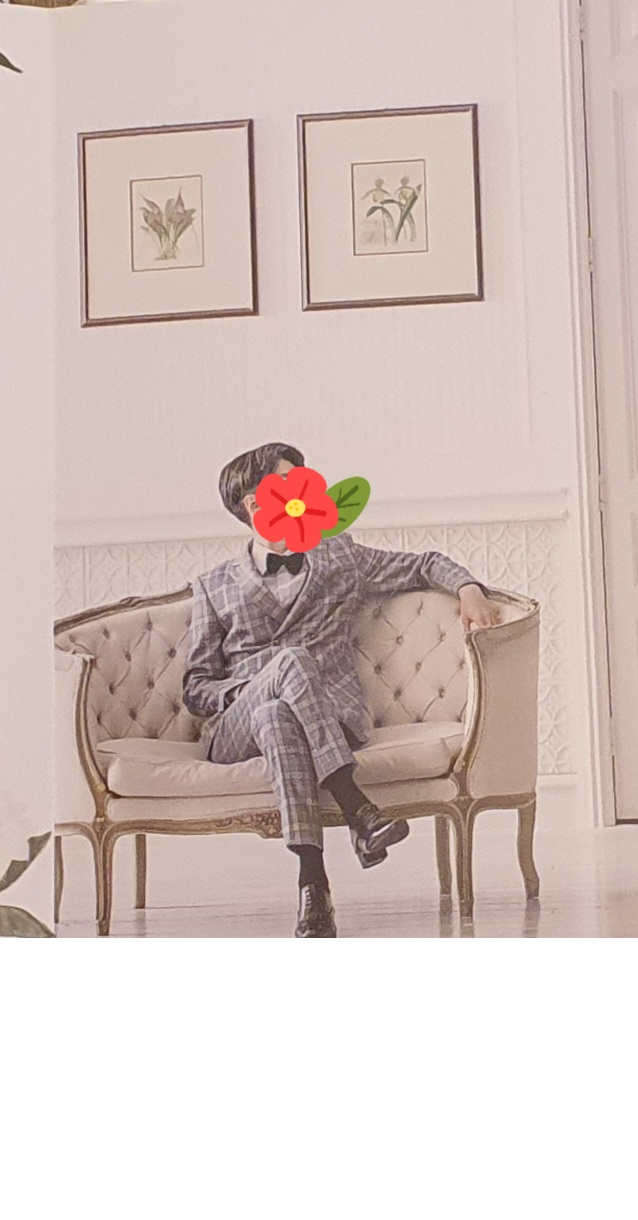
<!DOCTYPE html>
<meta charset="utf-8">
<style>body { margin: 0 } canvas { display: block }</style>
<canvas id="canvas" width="638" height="1220"></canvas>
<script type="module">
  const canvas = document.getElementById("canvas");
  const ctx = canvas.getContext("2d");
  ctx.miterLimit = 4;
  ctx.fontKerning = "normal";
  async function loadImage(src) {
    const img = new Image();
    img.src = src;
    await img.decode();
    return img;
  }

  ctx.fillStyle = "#ffffff";
  ctx.fillRect(0, 0, 638, 1220);
  ctx.drawImage(await loadImage("img1.png"), 0, 0, 638, 938);
</script>
